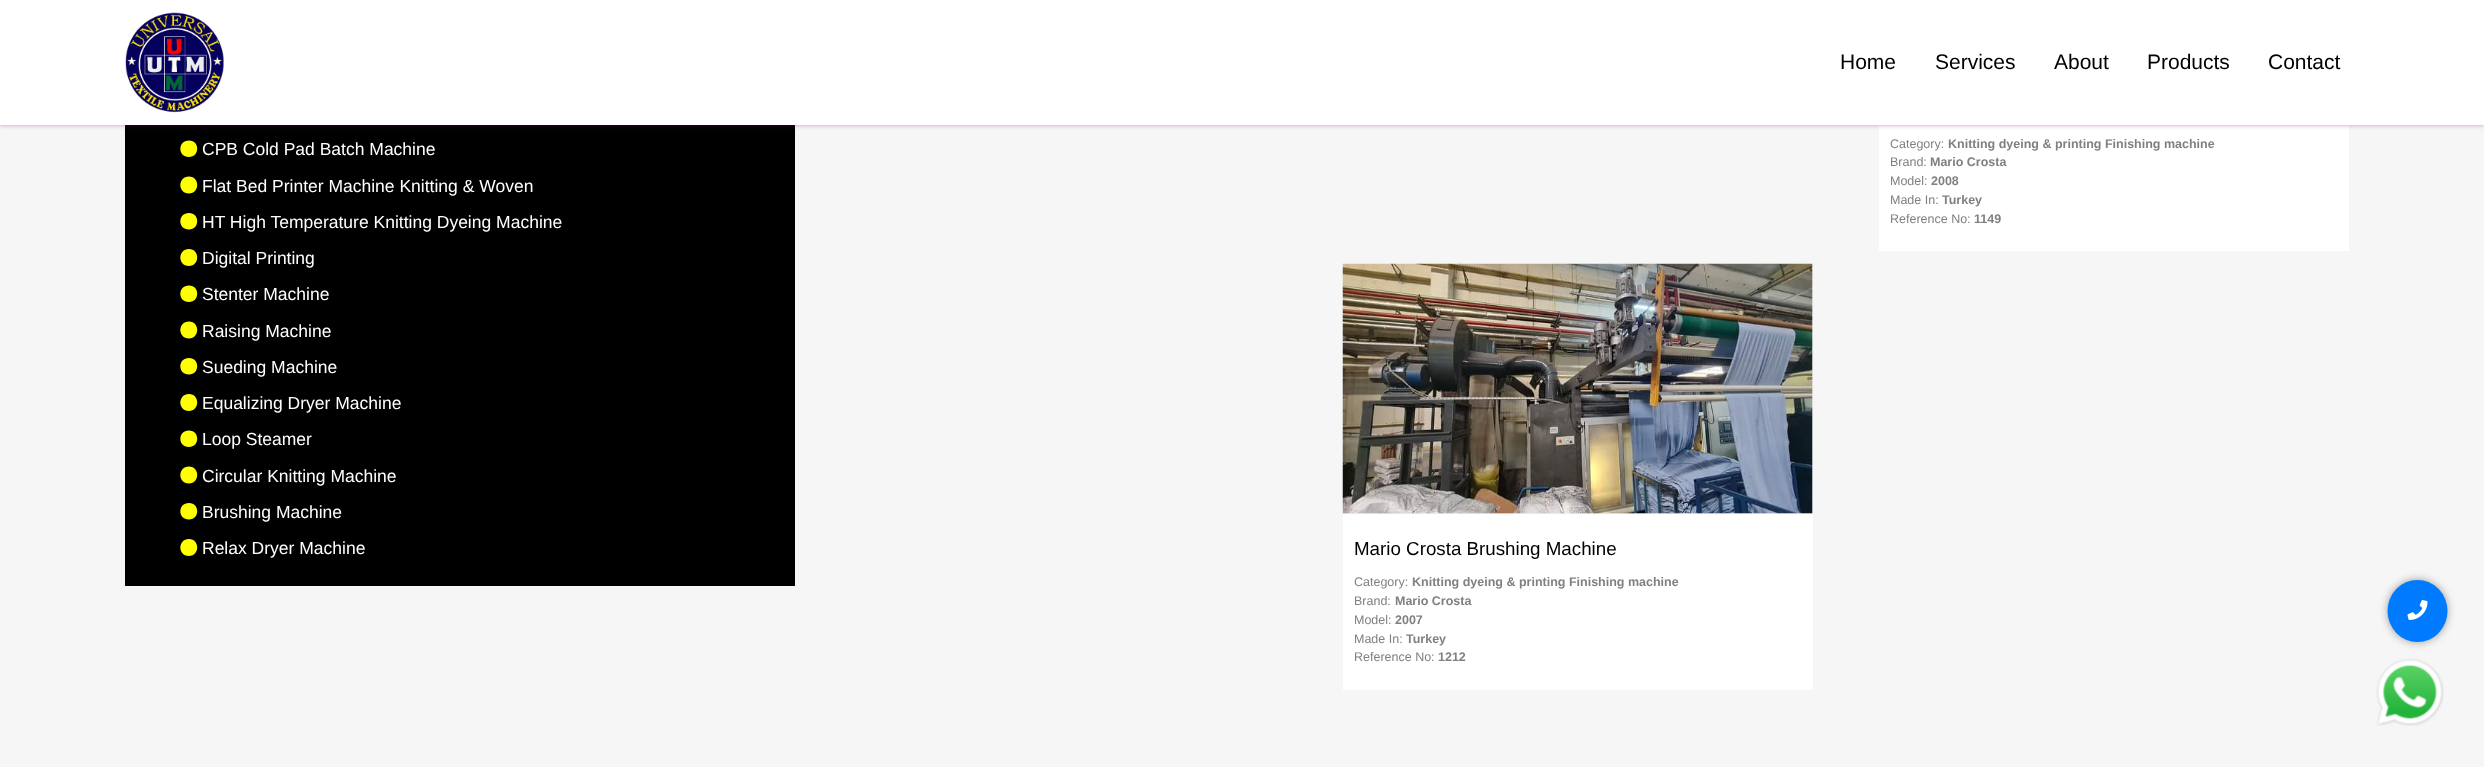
<!DOCTYPE html>
<meta charset="utf-8">
<style>body { margin: 0 } canvas { display: block }</style>
<canvas id="canvas" width="2484" height="767"></canvas>
<script type="module">
  const canvas = document.getElementById("canvas");
  const ctx = canvas.getContext("2d");
  ctx.miterLimit = 4;
  ctx.fontKerning = "normal";
  async function loadImage(src) {
    const img = new Image();
    img.src = src;
    await img.decode();
    return img;
  }

  ctx.fillStyle = "#f7f6f6";
  ctx.fillRect(0, 0, 2484, 767);
  ctx.fillStyle = "#000000";
  ctx.fillRect(125, 125, 670, 461);
  ctx.fillStyle = "#ffffff";
  ctx.fillRect(1879, 125, 470, 126);
  ctx.fillStyle = "rgba(136, 0, 136, 0.4)";
  ctx.filter = "blur(2.5px)";
  ctx.beginPath();
  ctx.rect(0, 0, 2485, 125);
  ctx.fill();
  ctx.filter = "none";
  ctx.fillStyle = "#ffffff";
  ctx.fillRect(0, 0, 2484, 125);
  ctx.drawImage(await loadImage("img1.png"), 125, 12, 99, 101);
  ctx.font = "21px Liberation Sans";
  ctx.fillStyle = "#000000";
  ctx.fillText("Home", 1840, 69);
  ctx.fillText("Services", 1935, 69);
  ctx.fillText("About", 2054, 69);
  ctx.fillText("Products", 2147, 69);
  ctx.fillText("Contact", 2268, 69);
  ctx.fillStyle = "#ffff00";
  ctx.beginPath();
  ctx.moveTo(189, 140.5);
  ctx.bezierCurveTo(177.5, 140.5, 177.5, 157, 189, 157);
  ctx.bezierCurveTo(200, 157, 200, 140.5, 189, 140.5);
  ctx.closePath();
  ctx.moveTo(189, 176.5);
  ctx.bezierCurveTo(177.5, 176.5, 177.5, 193.5, 189, 193.5);
  ctx.bezierCurveTo(200, 193.5, 200, 176.5, 189, 176.5);
  ctx.closePath();
  ctx.fill();
  ctx.font = "17.5px Liberation Sans";
  ctx.fillStyle = "#ffffff";
  ctx.fillText("CPB Cold Pad Batch Machine", 202, 155);
  ctx.fillText("Flat Bed Printer Machine Knitting & Woven", 202, 192);
  ctx.fillStyle = "#ffff00";
  ctx.beginPath();
  ctx.moveTo(189, 213);
  ctx.bezierCurveTo(177.5, 213, 177.5, 229.5, 189, 229.5);
  ctx.bezierCurveTo(200, 229.5, 200, 213, 189, 213);
  ctx.closePath();
  ctx.moveTo(189, 249);
  ctx.bezierCurveTo(177.5, 249, 177.5, 266, 189, 266);
  ctx.bezierCurveTo(200, 266, 200, 249, 189, 249);
  ctx.closePath();
  ctx.fill();
  ctx.fillStyle = "#ffffff";
  ctx.fillText("HT High Temperature Knitting Dyeing Machine", 202, 228);
  ctx.fillText("Digital Printing", 202, 264);
  ctx.fillStyle = "#ffff00";
  ctx.beginPath();
  ctx.moveTo(189, 285.5);
  ctx.bezierCurveTo(177.5, 285.5, 177.5, 302, 189, 302);
  ctx.bezierCurveTo(200, 302, 200, 285.5, 189, 285.5);
  ctx.closePath();
  ctx.moveTo(189, 321.5);
  ctx.bezierCurveTo(177.5, 321.5, 177.5, 338.5, 189, 338.5);
  ctx.bezierCurveTo(200, 338.5, 200, 321.5, 189, 321.5);
  ctx.closePath();
  ctx.fill();
  ctx.fillStyle = "#ffffff";
  ctx.fillText("Stenter Machine", 202, 300);
  ctx.fillText("Raising Machine", 202, 337);
  ctx.fillStyle = "#ffff00";
  ctx.beginPath();
  ctx.moveTo(189, 358);
  ctx.bezierCurveTo(177.5, 358, 177.5, 374.5, 189, 374.5);
  ctx.bezierCurveTo(200, 374.5, 200, 358, 189, 358);
  ctx.closePath();
  ctx.moveTo(189, 394);
  ctx.bezierCurveTo(177.5, 394, 177.5, 411, 189, 411);
  ctx.bezierCurveTo(200, 411, 200, 394, 189, 394);
  ctx.closePath();
  ctx.fill();
  ctx.fillStyle = "#ffffff";
  ctx.fillText("Sueding Machine", 202, 373);
  ctx.fillText("Equalizing Dryer Machine", 202, 409);
  ctx.fillStyle = "#ffff00";
  ctx.beginPath();
  ctx.moveTo(189, 430.5);
  ctx.bezierCurveTo(177.5, 430.5, 177.5, 447, 189, 447);
  ctx.bezierCurveTo(200, 447, 200, 430.5, 189, 430.5);
  ctx.closePath();
  ctx.moveTo(189, 466.5);
  ctx.bezierCurveTo(177.5, 466.5, 177.5, 483.5, 189, 483.5);
  ctx.bezierCurveTo(200, 483.5, 200, 466.5, 189, 466.5);
  ctx.closePath();
  ctx.fill();
  ctx.fillStyle = "#ffffff";
  ctx.fillText("Loop Steamer", 202, 445);
  ctx.fillText("Circular Knitting Machine", 202, 482);
  ctx.fillStyle = "#ffff00";
  ctx.beginPath();
  ctx.moveTo(189, 503);
  ctx.bezierCurveTo(177.5, 503, 177.5, 519.5, 189, 519.5);
  ctx.bezierCurveTo(200, 519.5, 200, 503, 189, 503);
  ctx.closePath();
  ctx.moveTo(189, 539);
  ctx.bezierCurveTo(177.5, 539, 177.5, 556, 189, 556);
  ctx.bezierCurveTo(200, 556, 200, 539, 189, 539);
  ctx.closePath();
  ctx.fill();
  ctx.fillStyle = "#ffffff";
  ctx.fillText("Brushing Machine", 202, 518);
  ctx.fillText("Relax Dryer Machine", 202, 554);
  ctx.font = "12.5px Liberation Sans";
  ctx.fillStyle = "#808080";
  ctx.fillText("Category:", 1890, 148);
  ctx.font = "bold 12.5px Liberation Sans";
  ctx.fillText("Knitting dyeing & printing Finishing machine", 1948, 148);
  ctx.font = "12.5px Liberation Sans";
  ctx.fillText("Brand:", 1890, 166);
  ctx.font = "bold 12.5px Liberation Sans";
  ctx.fillText("Mario Crosta", 1930, 166);
  ctx.font = "12.5px Liberation Sans";
  ctx.fillText("Model:", 1890, 185);
  ctx.font = "bold 12.5px Liberation Sans";
  ctx.fillText("2008", 1931, 185);
  ctx.font = "12.5px Liberation Sans";
  ctx.fillText("Made In:", 1890, 204);
  ctx.font = "bold 12.5px Liberation Sans";
  ctx.fillText("Turkey", 1942, 204);
  ctx.font = "12.5px Liberation Sans";
  ctx.fillText("Reference No:", 1890, 223);
  ctx.font = "bold 12.5px Liberation Sans";
  ctx.fillText("1149", 1974, 223);
  ctx.fillStyle = "#ffffff";
  ctx.fillRect(1343, 514, 470, 176);
  ctx.fillStyle = "#edebeb";
  ctx.fillRect(1343, 264, 470, 250);
  ctx.drawImage(await loadImage("img2.png"), 1342, 263, 471, 251);
  ctx.font = "18.75px Liberation Sans";
  ctx.fillStyle = "#000000";
  ctx.fillText("Mario Crosta Brushing Machine", 1354, 555);
  ctx.font = "12.5px Liberation Sans";
  ctx.fillStyle = "#808080";
  ctx.fillText("Category:", 1354, 586);
  ctx.font = "bold 12.5px Liberation Sans";
  ctx.fillText("Knitting dyeing & printing Finishing machine", 1412, 586);
  ctx.font = "12.5px Liberation Sans";
  ctx.fillText("Brand:", 1354, 605);
  ctx.font = "bold 12.5px Liberation Sans";
  ctx.fillText("Mario Crosta", 1395, 605);
  ctx.font = "12.5px Liberation Sans";
  ctx.fillText("Model:", 1354, 624);
  ctx.font = "bold 12.5px Liberation Sans";
  ctx.fillText("2007", 1395, 624);
  ctx.font = "12.5px Liberation Sans";
  ctx.fillText("Made In:", 1354, 643);
  ctx.font = "bold 12.5px Liberation Sans";
  ctx.fillText("Turkey", 1406, 643);
  ctx.font = "12.5px Liberation Sans";
  ctx.fillText("Reference No:", 1354, 661);
  ctx.font = "bold 12.5px Liberation Sans";
  ctx.fillText("1212", 1438, 661);
  ctx.filter = "blur(5px)";
  ctx.beginPath();
  ctx.roundRect(2389, 581, 57, 60, 28.5);
  ctx.fill();
  ctx.filter = "none";
  ctx.fillStyle = "#007bff";
  ctx.beginPath();
  ctx.ellipse(2417.5, 611, 30, 31, 0, 0, Math.PI * 2);
  ctx.fill();
  ctx.drawImage(await loadImage("img3.png"), 2407, 600, 21, 20);
  ctx.drawImage(await loadImage("img4.png"), 2376, 658, 68, 68);
</script>
